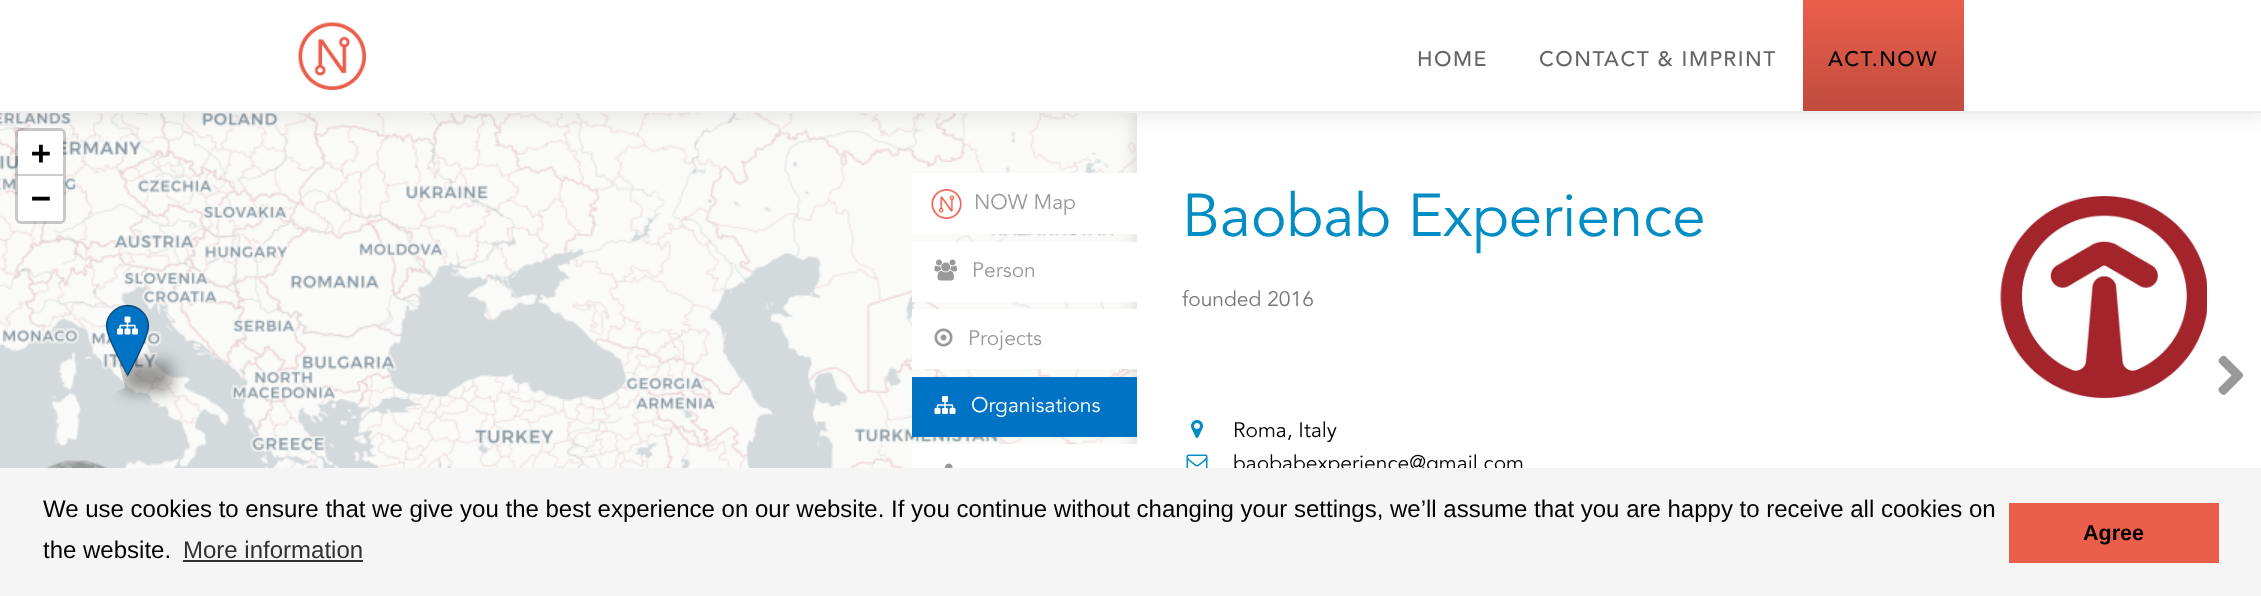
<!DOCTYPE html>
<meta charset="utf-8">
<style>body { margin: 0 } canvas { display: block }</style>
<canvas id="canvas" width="2261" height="596"></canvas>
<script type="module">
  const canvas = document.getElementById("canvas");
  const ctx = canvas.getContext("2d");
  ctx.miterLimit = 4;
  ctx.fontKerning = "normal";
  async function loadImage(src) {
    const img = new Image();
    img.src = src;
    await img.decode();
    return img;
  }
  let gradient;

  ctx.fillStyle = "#ffffff";
  ctx.fillRect(0, 0, 2261, 596);
  ctx.drawImage(await loadImage("img2.png"), 0, 113, 297, 286);
  ctx.drawImage(await loadImage("img3.png"), 297, 113, 384, 286);
  ctx.drawImage(await loadImage("img4.png"), 681, 113, 384, 286);
  ctx.drawImage(await loadImage("img5.png"), 1065, 113, 72, 264);
  ctx.drawImage(await loadImage("img9.png"), 1065, 437, 72, 7);
  ctx.fillStyle = "rgba(0, 0, 0, 0.1)";
  ctx.filter = "blur(7.5px)";
  ctx.beginPath();
  ctx.rect(1133, 108, 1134, 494);
  ctx.fill();
  ctx.filter = "none";
  ctx.fillStyle = "#ffffff";
  ctx.fillRect(1137, 113, 1124, 355);
  ctx.fillStyle = "rgba(50, 50, 50, 0.08)";
  ctx.filter = "blur(7.5px)";
  ctx.beginPath();
  ctx.rect(0, 8, 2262, 112);
  ctx.fill();
  ctx.filter = "none";
  ctx.fillStyle = "#ffffff";
  ctx.fillRect(0, 0, 2261, 111);
  ctx.fillStyle = "#eeeeee";
  ctx.fillRect(0, 111, 2261, 2);
  ctx.drawImage(await loadImage("img1.png"), 298, 22, 68, 68);
  ctx.letterSpacing = "1.5px";
  ctx.font = "500 21px Avenir";
  ctx.fillStyle = "#666666";
  ctx.fillText("HOME", 1417, 66);
  ctx.fillText("CONTACT & IMPRINT", 1539, 66);
  gradient = ctx.createLinearGradient(1883, 0, 1883, 113);
  gradient.addColorStop(0, "#eb5e4c");
  gradient.addColorStop(1, "#bf4c3d");
  ctx.fillStyle = gradient;
  ctx.fillRect(1803, 0, 161, 111);
  ctx.fillStyle = "#000000";
  ctx.fillText("ACT.NOW", 1828, 66);
  ctx.drawImage(await loadImage("img6.png"), 0, 399, 297, 69);
  ctx.drawImage(await loadImage("img7.png"), 297, 399, 384, 69);
  ctx.drawImage(await loadImage("img8.png"), 681, 399, 384, 69);
  ctx.save();
  ctx.beginPath();
  ctx.moveTo(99, 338);
  ctx.lineTo(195, 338);
  ctx.lineTo(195, 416);
  ctx.lineTo(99, 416);
  ctx.closePath();
  ctx.moveTo(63.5, 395);
  ctx.lineTo(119, 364);
  ctx.lineTo(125, 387.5);
  ctx.lineTo(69.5, 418.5);
  ctx.closePath();
  ctx.clip("evenodd");
  ctx.fillStyle = "rgba(0, 0, 0, 0.4)";
  ctx.filter = "blur(7.5px)";
  ctx.beginPath();
  ctx.rect(123, 362, 48, 30);
  ctx.fill();
  ctx.filter = "none";
  ctx.restore();
  ctx.fillStyle = "#0073c4";
  ctx.beginPath();
  ctx.moveTo(128, 305);
  ctx.bezierCurveTo(116, 305, 106, 315, 106, 326);
  ctx.bezierCurveTo(106, 338, 128, 376, 128, 376);
  ctx.bezierCurveTo(128, 376, 149, 338, 149, 326);
  ctx.bezierCurveTo(149, 315, 139, 305, 128, 305);
  ctx.closePath();
  ctx.fill();
  ctx.beginPath();
  ctx.moveTo(127.5, 305.5);
  ctx.bezierCurveTo(116, 305.5, 106.5, 314.5, 106.5, 326);
  ctx.bezierCurveTo(106.5, 338, 127.5, 375.5, 127.5, 375.5);
  ctx.bezierCurveTo(127.5, 375.5, 148.5, 338, 148.5, 326);
  ctx.bezierCurveTo(148.5, 314.5, 139, 305.5, 127.5, 305.5);
  ctx.closePath();
  ctx.strokeStyle = "rgba(0, 0, 0, 0.4)";
  ctx.lineWidth = 1.4;
  ctx.stroke();
  ctx.drawImage(await loadImage("img10.png"), 117, 316, 21, 19);
  ctx.beginPath();
  ctx.roundRect(16.5, 129.5, 48, 93, 4.5);
  ctx.strokeStyle = "rgba(0, 0, 0, 0.2)";
  ctx.lineWidth = 3;
  ctx.stroke();
  ctx.fillStyle = "#ffffff";
  ctx.beginPath();
  ctx.roundRect(18, 131, 45, 45, [3, 3, 0, 0]);
  ctx.fill();
  ctx.fillStyle = "#cccccc";
  ctx.fillRect(18, 174, 45, 2);
  ctx.letterSpacing = "0px";
  ctx.font = "bold 33px DejaVu Sans Mono";
  ctx.fillStyle = "#000000";
  ctx.fillText("+", 31, 164);
  ctx.fillStyle = "#ffffff";
  ctx.beginPath();
  ctx.roundRect(18, 176, 45, 45, [0, 0, 3, 3]);
  ctx.fill();
  ctx.fillStyle = "#000000";
  ctx.fillText("−", 31, 209);
  ctx.drawImage(await loadImage("img11.png"), 45, 460, 62, 8);
  ctx.fillStyle = "#ffffff";
  ctx.fillRect(912, 173, 225, 61);
  ctx.drawImage(await loadImage("img12.png"), 931, 189, 31, 30);
  ctx.font = "21px Avenir";
  ctx.fillStyle = "#999999";
  ctx.fillText("NOW Map", 974, 209);
  ctx.fillStyle = "#ffffff";
  ctx.fillRect(912, 242, 225, 60);
  ctx.drawImage(await loadImage("img13.png"), 934, 259, 23, 22);
  ctx.fillStyle = "#999999";
  ctx.fillText("Person", 972, 277);
  ctx.fillStyle = "#ffffff";
  ctx.fillRect(912, 309, 225, 60);
  ctx.drawImage(await loadImage("img14.png"), 934, 328, 19, 19);
  ctx.fillStyle = "#999999";
  ctx.fillText("Projects", 968, 345);
  ctx.fillStyle = "#0073c4";
  ctx.fillRect(912, 377, 225, 60);
  ctx.drawImage(await loadImage("img15.png"), 934, 396, 22, 18);
  ctx.fillStyle = "#ffffff";
  ctx.fillText("Organisations", 971, 412);
  ctx.fillRect(912, 444, 225, 24);
  ctx.drawImage(await loadImage("img16.png"), 944, 463, 9, 5);
  ctx.font = "60px Avenir";
  ctx.fillStyle = "#028dc4";
  ctx.fillText("Baobab Experience", 1182, 236);
  ctx.font = "21px Avenir";
  ctx.fillStyle = "#787878";
  ctx.fillText("founded 2016", 1182, 306);
  ctx.drawImage(await loadImage("img17.png"), 2000, 195, 207, 204);
  ctx.drawImage(await loadImage("img18.png"), 1191, 420, 12, 18);
  ctx.fillStyle = "#000000";
  ctx.fillText("Roma, Italy", 1233, 437);
  ctx.drawImage(await loadImage("img19.png"), 1186, 454, 22, 14);
  ctx.fillText("baobabexperience@gmail.com", 1233, 470);
  ctx.drawImage(await loadImage("img20.png"), 2218, 355, 26, 40);
  ctx.fillStyle = "#f5f5f5";
  ctx.fillRect(0, 468, 2261, 128);
  ctx.font = "24px Liberation Sans";
  ctx.fillStyle = "#000000";
  ctx.fillText("We use cookies to ensure that we give you the best experience on our website. If you continue without changing your settings, we’ll assume that you are happy to receive all cookies on", 43, 517);
  ctx.fillText("the website.", 43, 558);
  ctx.fillStyle = "#313131";
  ctx.fillText("More information", 183, 558);
  ctx.fillRect(183, 560, 180, 2);
  ctx.fillStyle = "#eb5e4c";
  ctx.fillRect(2009, 503, 210, 60);
  ctx.font = "bold 21.5px Liberation Sans";
  ctx.fillStyle = "#000000";
  ctx.fillText("Agree", 2083, 540);
</script>
